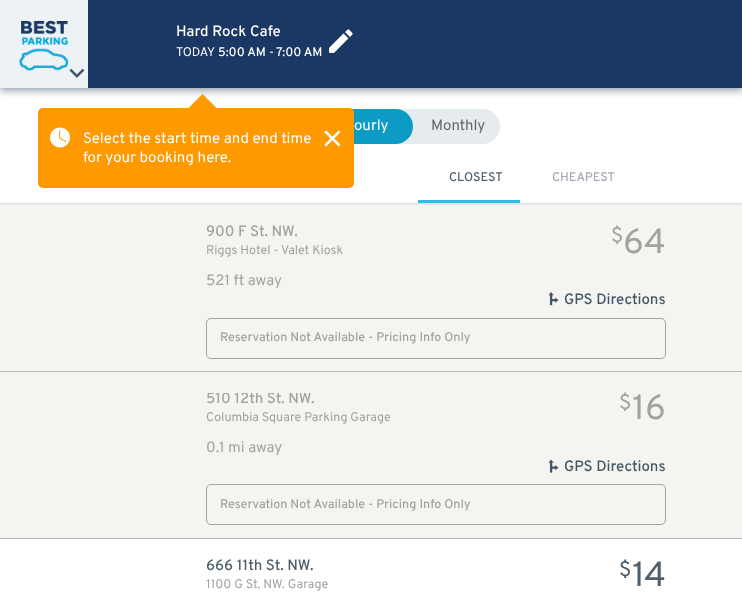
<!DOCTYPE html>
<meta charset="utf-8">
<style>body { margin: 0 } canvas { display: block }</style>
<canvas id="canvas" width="742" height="594"></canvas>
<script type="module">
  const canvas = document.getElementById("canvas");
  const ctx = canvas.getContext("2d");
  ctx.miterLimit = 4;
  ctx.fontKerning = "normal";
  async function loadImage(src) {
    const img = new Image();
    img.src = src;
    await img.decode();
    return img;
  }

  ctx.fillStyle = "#ffffff";
  ctx.fillRect(0, 0, 742, 594);
  ctx.fillStyle = "#e6ecee";
  ctx.beginPath();
  ctx.roundRect(325, 109, 175, 35, 17.5);
  ctx.fill();
  ctx.fillStyle = "#0c9bc4";
  ctx.beginPath();
  ctx.roundRect(325, 109, 88, 35, 17.5);
  ctx.fill();
  ctx.fillStyle = "#ff9900";
  ctx.beginPath();
  ctx.roundRect(38, 108, 316, 80, 5);
  ctx.fill();
  ctx.beginPath();
  ctx.moveTo(217.5, 109);
  ctx.lineTo(187.5, 109);
  ctx.lineTo(202.5, 94);
  ctx.closePath();
  ctx.fill();
  ctx.fillStyle = "#84919e";
  ctx.filter = "blur(4px)";
  ctx.beginPath();
  ctx.rect(0, 3, 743, 87);
  ctx.fill();
  ctx.filter = "none";
  ctx.fillStyle = "#1b3764";
  ctx.fillRect(88, 0, 654, 88);
  ctx.fillStyle = "#edf2f5";
  ctx.fillRect(0, 0, 88, 88);
  ctx.drawImage(await loadImage("img1.png"), 19, 20, 50, 51);
  ctx.drawImage(await loadImage("img2.png"), 69, 68, 16, 10);
  ctx.font = "500 15px Overpass";
  ctx.fillStyle = "#ffffff";
  ctx.fillText("Hard Rock Cafe", 176, 36);
  ctx.font = "12.5px Overpass";
  ctx.fillText("TODAY", 176, 56);
  ctx.font = "500 12.5px Overpass";
  ctx.fillText("5:00 AM", 218, 56);
  ctx.font = "12.5px Overpass";
  ctx.fillText("-", 269, 56);
  ctx.font = "500 12.5px Overpass";
  ctx.fillText("7:00 AM", 276, 56);
  ctx.drawImage(await loadImage("img3.png"), 329, 29, 24, 24);
  ctx.drawImage(await loadImage("img4.png"), 50, 127, 20, 21);
  ctx.font = "15px Overpass";
  ctx.fillText("Select the start time and end time", 83, 143);
  ctx.fillText("for your booking here.", 83, 162);
  ctx.drawImage(await loadImage("img5.png"), 324, 130, 17, 17);
  ctx.fillText("ourly", 354, 130);
  ctx.fillStyle = "#656565";
  ctx.fillText("Monthly", 431, 130);
  ctx.fillStyle = "#e8e7e7";
  ctx.fillRect(0, 204, 742, 1);
  ctx.fillStyle = "#dfdfdf";
  ctx.fillRect(0, 203, 742, 1);
  ctx.font = "500 12.5px Overpass";
  ctx.fillStyle = "#4e5f6b";
  ctx.fillText("CLOSEST", 449, 181);
  ctx.fillStyle = "#a5abb4";
  ctx.fillText("CHEAPEST", 552, 181);
  ctx.fillStyle = "#2ebde9";
  ctx.fillRect(418, 200, 102, 3);
  ctx.fillStyle = "#f4f4f1";
  ctx.fillRect(0, 205, 742, 333);
  ctx.fillStyle = "#bbbbbb";
  ctx.fillRect(0, 371, 742, 1);
  ctx.font = "500 15px Overpass";
  ctx.fillStyle = "#a2a2a2";
  ctx.fillText("900 F St. NW.", 206, 236);
  ctx.font = "12.5px Overpass";
  ctx.fillText("Riggs Hotel - Valet Kiosk", 206, 254);
  ctx.font = "15px Overpass";
  ctx.fillText("521 ft away", 206, 285);
  ctx.font = "21px Overpass";
  ctx.fillText("$", 611, 242);
  ctx.font = "35px Overpass";
  ctx.fillText("64", 623, 253);
  ctx.drawImage(await loadImage("img6.png"), 548, 292, 11, 14);
  ctx.font = "500 15px Overpass";
  ctx.fillStyle = "#415765";
  ctx.fillText("GPS Directions", 564, 304);
  ctx.beginPath();
  ctx.roundRect(206.5, 318.5, 459, 40, 4.5);
  ctx.strokeStyle = "#a2a2a2";
  ctx.stroke();
  ctx.font = "500 12.5px Overpass";
  ctx.fillStyle = "#a2a2a2";
  ctx.fillText("Reservation Not Available - Pricing Info Only", 220, 341);
  ctx.fillStyle = "#bbbbbb";
  ctx.fillRect(0, 538, 742, 1);
  ctx.save();
  ctx.beginPath();
  ctx.rect(206, 393, 294, 15);
  ctx.clip();
  ctx.font = "500 15px Overpass";
  ctx.fillStyle = "#a2a2a2";
  ctx.fillText("510 12th St. NW.", 206, 403);
  ctx.restore();
  ctx.font = "12.5px Overpass";
  ctx.fillStyle = "#a2a2a2";
  ctx.fillText("Columbia Square Parking Garage", 206, 421);
  ctx.font = "15px Overpass";
  ctx.fillText("0.1 mi away", 206, 452);
  ctx.font = "21px Overpass";
  ctx.fillText("$", 619, 409);
  ctx.font = "35px Overpass";
  ctx.fillText("16", 632, 419);
  ctx.drawImage(await loadImage("img7.png"), 548, 459, 11, 14);
  ctx.font = "500 15px Overpass";
  ctx.fillStyle = "#415765";
  ctx.fillText("GPS Directions", 564, 471);
  ctx.beginPath();
  ctx.roundRect(206.5, 484.5, 459, 40, 4.5);
  ctx.stroke();
  ctx.font = "500 12.5px Overpass";
  ctx.fillStyle = "#a2a2a2";
  ctx.fillText("Reservation Not Available - Pricing Info Only", 220, 508);
  ctx.font = "500 15px Overpass";
  ctx.fillStyle = "#4e5f6b";
  ctx.fillText("666 11th St. NW.", 206, 570);
  ctx.font = "12.5px Overpass";
  ctx.fillStyle = "#a2a2a2";
  ctx.fillText("1100 G St. NW. Garage", 206, 588);
  ctx.font = "21px Overpass";
  ctx.fillStyle = "#4e5f6b";
  ctx.fillText("$", 619, 576);
  ctx.font = "35px Overpass";
  ctx.fillText("14", 632, 586);
</script>
